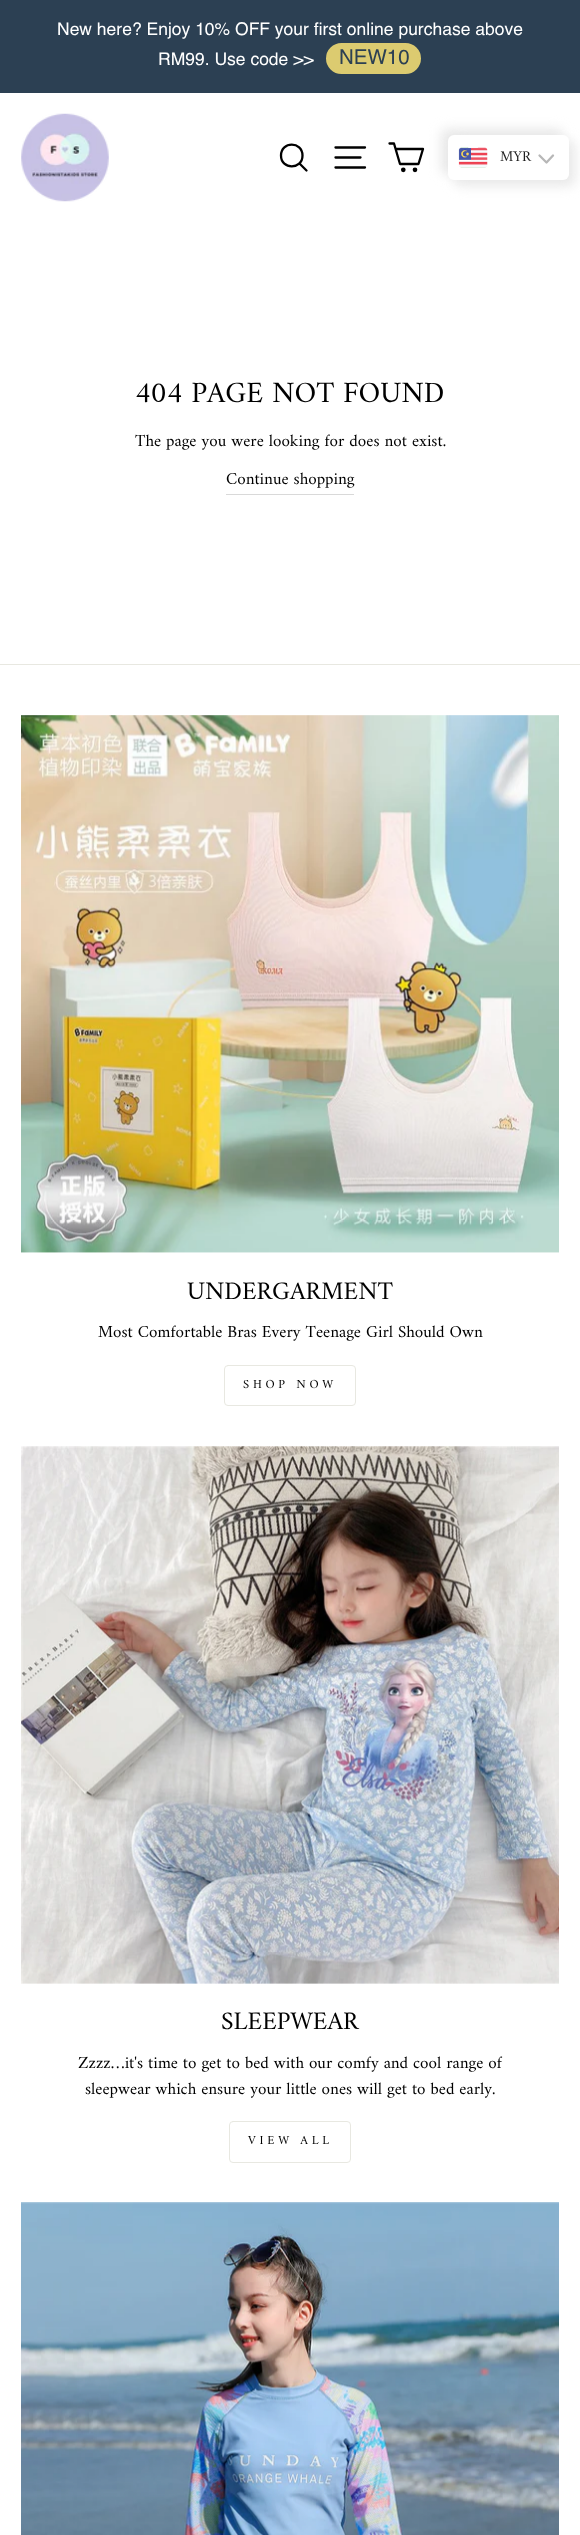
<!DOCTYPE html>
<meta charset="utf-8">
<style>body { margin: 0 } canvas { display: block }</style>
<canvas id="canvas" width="580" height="2535"></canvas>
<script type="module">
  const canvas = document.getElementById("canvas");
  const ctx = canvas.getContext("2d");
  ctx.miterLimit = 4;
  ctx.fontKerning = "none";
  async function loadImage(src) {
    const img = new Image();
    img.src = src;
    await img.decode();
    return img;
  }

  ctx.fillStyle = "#ffffff";
  ctx.fillRect(0, 0, 580, 2535);
  ctx.fillStyle = "rgba(0, 0, 0, 0.2)";
  ctx.filter = "blur(0.5px)";
  ctx.beginPath();
  ctx.rect(0, 93, 580, 130);
  ctx.fill();
  ctx.filter = "none";
  ctx.fillStyle = "#2c4053";
  ctx.fillRect(0, 0, 580, 93);
  ctx.font = "17.5px Helvetica";
  ctx.fillStyle = "#ffffff";
  ctx.fillText("New here? Enjoy 10% OFF your first online purchase above", 57, 35);
  ctx.fillText("RM99. Use code >>", 158, 65);
  ctx.fillStyle = "#dccb70";
  ctx.beginPath();
  ctx.roundRect(327.5, 44.5, 92, 28, 14);
  ctx.fill();
  ctx.strokeStyle = "#dccb70";
  ctx.lineWidth = 3;
  ctx.stroke();
  ctx.font = "20.5px Helvetica";
  ctx.fillStyle = "#2c4053";
  ctx.fillText("NEW10", 339, 64);
  ctx.fillStyle = "#ffffff";
  ctx.fillRect(0, 93, 580, 130);
  ctx.drawImage(await loadImage("img1.png"), 21, 113, 88, 89);
  ctx.beginPath();
  ctx.moveTo(302.5, 155.5);
  ctx.bezierCurveTo(302.5, 170, 281, 170, 281, 155.5);
  ctx.bezierCurveTo(281, 141, 302.5, 141, 302.5, 155.5);
  ctx.closePath();
  ctx.moveTo(306.5, 170.5);
  ctx.lineTo(299.5, 163.5);
  ctx.strokeStyle = "#000000";
  ctx.lineWidth = 2.3;
  ctx.lineCap = "round";
  ctx.lineJoin = "round";
  ctx.stroke();
  ctx.beginPath();
  ctx.moveTo(335.5, 147.5);
  ctx.lineTo(365, 147.5);
  ctx.moveTo(335.5, 157.5);
  ctx.lineTo(360.5, 157.5);
  ctx.moveTo(335.5, 167.5);
  ctx.lineTo(365, 167.5);
  ctx.stroke();
  ctx.beginPath();
  ctx.moveTo(395.5, 149);
  ctx.lineTo(423, 149);
  ctx.lineTo(418.5, 164);
  ctx.lineTo(400, 164);
  ctx.lineTo(394, 143.5);
  ctx.lineTo(389.5, 143.5);
  ctx.stroke();
  ctx.beginPath();
  ctx.arc(403.3, 169.8, 1.2, 0, Math.PI * 2);
  ctx.stroke();
  ctx.beginPath();
  ctx.arc(415, 169.8, 1.2, 0, Math.PI * 2);
  ctx.stroke();
  ctx.fillStyle = "#e8e8e8";
  ctx.filter = "blur(6px)";
  ctx.beginPath();
  ctx.roundRect(441, 129, 122, 45, 6);
  ctx.fill();
  ctx.filter = "none";
  ctx.filter = "blur(6px)";
  ctx.beginPath();
  ctx.roundRect(454, 141, 121, 45, 6);
  ctx.fill();
  ctx.filter = "none";
  ctx.fillStyle = "#ffffff";
  ctx.beginPath();
  ctx.roundRect(448, 135, 121, 45, 6);
  ctx.fill();
  ctx.drawImage(await loadImage("img2.png"), 458, 147, 30, 21);
  ctx.font = "15px Amiri";
  ctx.fillStyle = "#1e1e1e";
  ctx.fillText("MYR", 500, 161);
  ctx.beginPath();
  ctx.moveTo(539.5, 155.5);
  ctx.lineTo(546.5, 162.5);
  ctx.lineTo(553, 155.5);
  ctx.strokeStyle = "#b7b7b7";
  ctx.stroke();
  ctx.font = "29.75px Amiri";
  ctx.fillStyle = "#000000";
  ctx.fillText("404 PAGE NOT FOUND", 135, 402);
  ctx.font = "17px Amiri";
  ctx.fillText("The page you were looking for does not exist.", 135, 446);
  ctx.fillStyle = "#d9d9d9";
  ctx.fillRect(226, 494, 128, 1);
  ctx.fillStyle = "#000000";
  ctx.fillText("Continue shopping", 226, 484);
  ctx.fillStyle = "#e8e8e1";
  ctx.fillRect(0, 664, 580, 1);
  ctx.drawImage(await loadImage("img3.png"), 21, 715, 538, 538);
  ctx.font = "25.5px Amiri";
  ctx.fillStyle = "#000000";
  ctx.fillText("UNDERGARMENT", 187, 1299);
  ctx.font = "17px Amiri";
  ctx.fillText("Most Comfortable Bras Every Teenage Girl Should Own", 98, 1337);
  ctx.beginPath();
  ctx.roundRect(224.5, 1365.5, 131, 40, 3.5);
  ctx.strokeStyle = "#e8e8e1";
  ctx.lineWidth = 1;
  ctx.lineJoin = "miter";
  ctx.stroke();
  ctx.letterSpacing = "3.75px";
  ctx.font = "12.5px Amiri";
  ctx.fillText("SHOP NOW", 243, 1388);
  ctx.drawImage(await loadImage("img4.png"), 21, 1446, 538, 538);
  ctx.letterSpacing = "0px";
  ctx.font = "25.5px Amiri";
  ctx.fillText("SLEEPWEAR", 221, 2029);
  ctx.font = "17px Amiri";
  ctx.fillText("Zzzz…it's time to get to bed with our comfy and cool range of", 78, 2068);
  ctx.fillText("sleepwear which ensure your little ones will get to bed early.", 85, 2094);
  ctx.beginPath();
  ctx.roundRect(229.5, 2121.5, 121, 41, 3.5);
  ctx.stroke();
  ctx.letterSpacing = "3.75px";
  ctx.font = "12.5px Amiri";
  ctx.fillText("VIEW ALL", 248, 2144);
  ctx.drawImage(await loadImage("img5.png"), 21, 2202, 538, 333);
</script>
